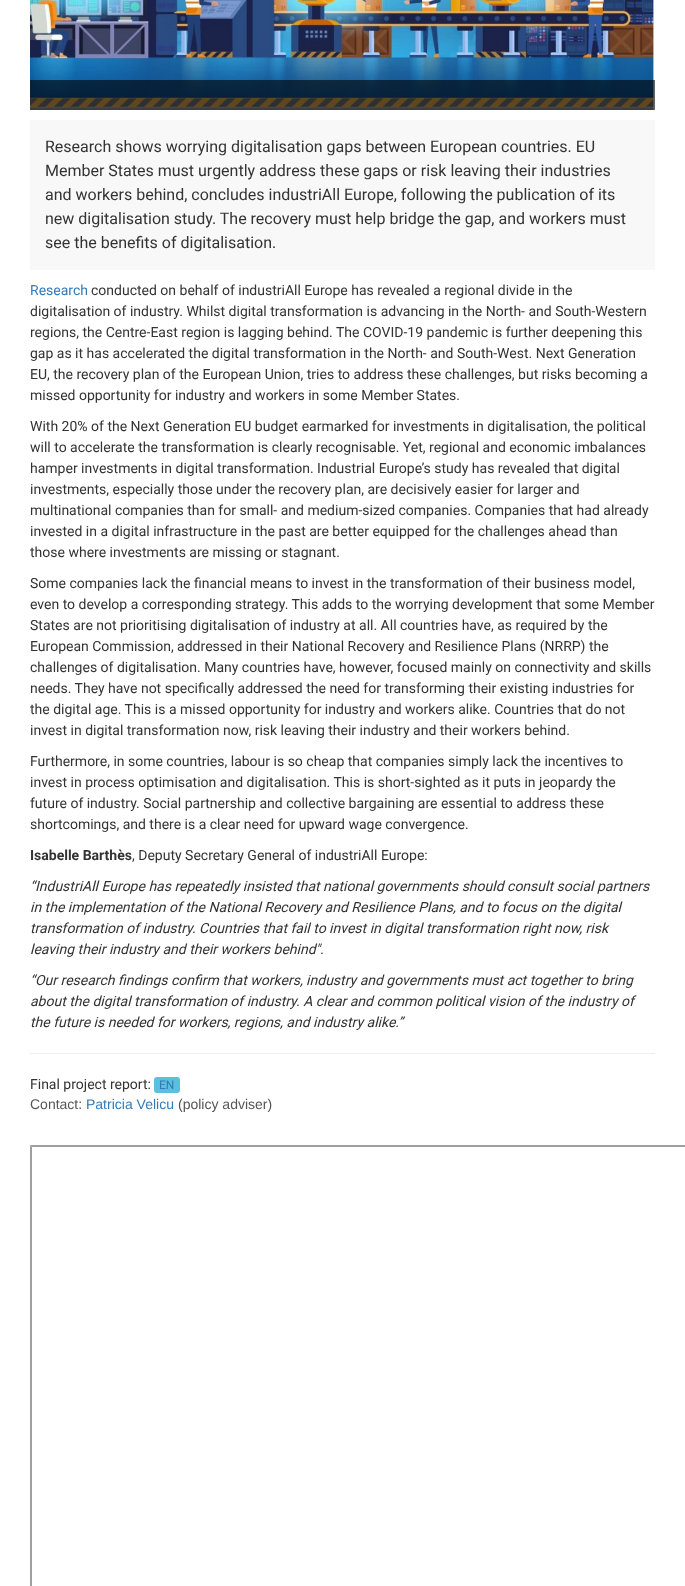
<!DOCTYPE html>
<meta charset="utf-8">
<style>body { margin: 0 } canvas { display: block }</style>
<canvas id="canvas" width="685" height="1586"></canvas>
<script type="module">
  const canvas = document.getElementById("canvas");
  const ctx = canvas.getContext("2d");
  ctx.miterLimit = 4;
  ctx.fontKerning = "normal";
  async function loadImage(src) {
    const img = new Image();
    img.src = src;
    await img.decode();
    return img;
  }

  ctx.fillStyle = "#ffffff";
  ctx.fillRect(0, 0, 685, 1586);
  ctx.drawImage(await loadImage("img1.png"), 30, 0, 625, 110);
  ctx.fillStyle = "rgba(0, 0, 0, 0.6)";
  ctx.fillRect(30, 80, 625, 30);
  ctx.fillStyle = "#f8f8f8";
  ctx.fillRect(30, 120, 625, 150);
  ctx.font = "16px Roboto";
  ctx.fillStyle = "#333333";
  ctx.fillText("Research shows worrying digitalisation gaps between European countries. EU", 45, 152);
  ctx.fillText("Member States must urgently address these gaps or risk leaving their industries", 45, 176);
  ctx.fillText("and workers behind, concludes industriAll Europe, following the publication of its", 45, 200);
  ctx.fillText("new digitalisation study. The recovery must help bridge the gap, and workers must", 45, 224);
  ctx.fillText("see the benefits of digitalisation.", 45, 248);
  ctx.font = "14px Roboto";
  ctx.fillStyle = "#337ab7";
  ctx.fillText("Research", 30, 295);
  ctx.fillStyle = "#333333";
  ctx.fillText("conducted on behalf of industriAll Europe has revealed a regional divide in the", 91, 295);
  ctx.fillText("digitalisation of industry. Whilst digital transformation is advancing in the North- and South-Western", 30, 316);
  ctx.fillText("regions, the Centre-East region is lagging behind. The COVID-19 pandemic is further deepening this", 30, 337);
  ctx.fillText("gap as it has accelerated the digital transformation in the North- and South-West. Next Generation", 30, 358);
  ctx.fillText("EU, the recovery plan of the European Union, tries to address these challenges, but risks becoming a", 30, 379);
  ctx.fillText("missed opportunity for industry and workers in some Member States.", 30, 400);
  ctx.fillText("With 20% of the Next Generation EU budget earmarked for investments in digitalisation, the political", 30, 431);
  ctx.fillText("will to accelerate the transformation is clearly recognisable. Yet, regional and economic imbalances", 30, 452);
  ctx.fillText("hamper investments in digital transformation. Industrial Europe’s study has revealed that digital", 30, 473);
  ctx.fillText("investments, especially those under the recovery plan, are decisively easier for larger and", 30, 494);
  ctx.fillText("multinational companies than for small- and medium-sized companies. Companies that had already", 30, 515);
  ctx.fillText("invested in a digital infrastructure in the past are better equipped for the challenges ahead than", 30, 536);
  ctx.fillText("those where investments are missing or stagnant.", 30, 557);
  ctx.fillText("Some companies lack the financial means to invest in the transformation of their business model,", 30, 588);
  ctx.fillText("even to develop a corresponding strategy. This adds to the worrying development that some Member", 30, 609);
  ctx.fillText("States are not prioritising digitalisation of industry at all. All countries have, as required by the", 30, 630);
  ctx.fillText("European Commission, addressed in their National Recovery and Resilience Plans (NRRP) the", 30, 651);
  ctx.fillText("challenges of digitalisation. Many countries have, however, focused mainly on connectivity and skills", 30, 672);
  ctx.fillText("needs. They have not specifically addressed the need for transforming their existing industries for", 30, 693);
  ctx.fillText("the digital age. This is a missed opportunity for industry and workers alike. Countries that do not", 30, 714);
  ctx.fillText("invest in digital transformation now, risk leaving their industry and their workers behind.", 30, 735);
  ctx.fillText("Furthermore, in some countries, labour is so cheap that companies simply lack the incentives to", 30, 766);
  ctx.fillText("invest in process optimisation and digitalisation. This is short-sighted as it puts in jeopardy the", 30, 787);
  ctx.fillText("future of industry. Social partnership and collective bargaining are essential to address these", 30, 808);
  ctx.fillText("shortcomings, and there is a clear need for upward wage convergence.", 30, 829);
  ctx.font = "bold 14px Roboto";
  ctx.fillText("Isabelle Barthès", 30, 860);
  ctx.font = "14px Roboto";
  ctx.fillText(", Deputy Secretary General of industriAll Europe:", 132, 860);
  ctx.font = "italic 14px Roboto";
  ctx.fillText("“IndustriAll Europe has repeatedly insisted that national governments should consult social partners", 30, 891);
  ctx.fillText("in the implementation of the National Recovery and Resilience Plans, and to focus on the digital", 30, 912);
  ctx.fillText("transformation of industry. Countries that fail to invest in digital transformation right now, risk", 30, 933);
  ctx.fillText("leaving their industry and their workers behind\".", 30, 954);
  ctx.fillText("“Our research findings confirm that workers, industry and governments must act together to bring", 30, 985);
  ctx.fillText("about the digital transformation of industry. A clear and common political vision of the industry of", 30, 1006);
  ctx.fillText("the future is needed for workers, regions, and industry alike.”", 30, 1027);
  ctx.fillStyle = "#eeeeee";
  ctx.fillRect(30, 1053, 625, 1);
  ctx.font = "14px Roboto";
  ctx.fillStyle = "#333333";
  ctx.fillText("Final project report:", 30, 1089);
  ctx.fillStyle = "#5bc0de";
  ctx.beginPath();
  ctx.roundRect(154, 1077, 26, 16, 3);
  ctx.fill();
  ctx.font = "12px Roboto";
  ctx.fillStyle = "#337ab7";
  ctx.fillText("EN", 159, 1089);
  ctx.font = "14px Liberation Sans";
  ctx.fillStyle = "#555555";
  ctx.fillText("Contact:", 30, 1109);
  ctx.fillStyle = "#337ab7";
  ctx.fillText("Patricia Velicu", 86, 1109);
  ctx.fillStyle = "#555555";
  ctx.fillText("(policy adviser)", 178, 1109);
  ctx.fillStyle = "#9f9f9f";
  ctx.beginPath();
  ctx.moveTo(30, 1145);
  ctx.lineTo(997, 1145);
  ctx.lineTo(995, 1147);
  ctx.lineTo(32, 1147);
  ctx.closePath();
  ctx.fill();
  ctx.beginPath();
  ctx.moveTo(30, 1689);
  ctx.lineTo(30, 1145);
  ctx.lineTo(32, 1147);
  ctx.lineTo(32, 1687);
  ctx.closePath();
  ctx.fill();
</script>
